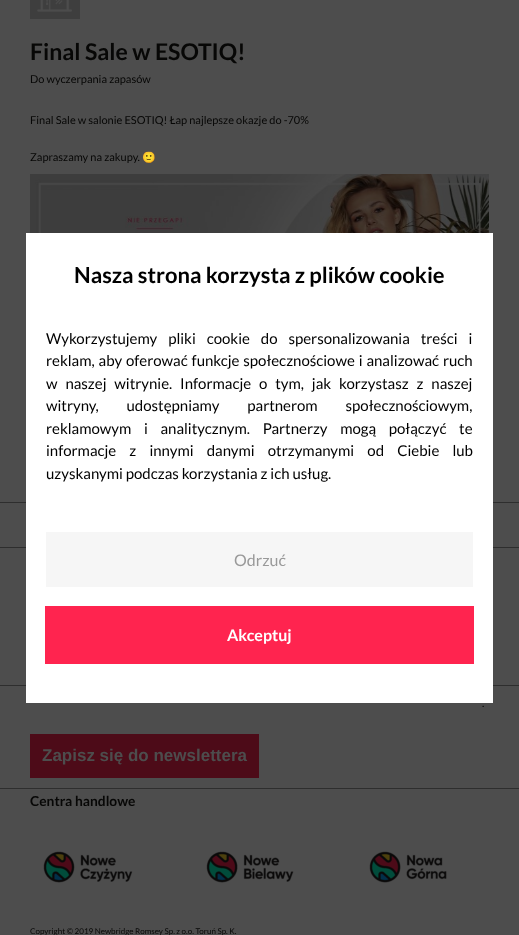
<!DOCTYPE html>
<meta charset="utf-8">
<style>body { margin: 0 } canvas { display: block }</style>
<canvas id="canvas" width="519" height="935"></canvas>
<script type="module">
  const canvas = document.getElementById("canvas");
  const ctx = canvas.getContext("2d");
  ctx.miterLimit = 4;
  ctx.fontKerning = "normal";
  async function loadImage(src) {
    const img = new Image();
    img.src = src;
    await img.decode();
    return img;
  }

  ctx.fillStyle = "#4d4d4d";
  ctx.fillRect(0, 0, 519, 935);
  ctx.drawImage(await loadImage("img1.png"), 30, 0, 50, 19);
  ctx.font = "bold 23px Lato";
  ctx.fillStyle = "#070706";
  ctx.fillText("Final Sale w ESOTIQ!", 30, 60);
  ctx.font = "11px Lato";
  ctx.fillText("Do wyczerpania zapasów", 30, 83);
  ctx.fillText("Final Sale w salonie ESOTIQ! Łap najlepsze okazje do -70%", 30, 124);
  ctx.fillText("Zapraszamy na zakupy.", 30, 161);
  ctx.font = "11px Noto Color Emoji";
  ctx.fillText("🙂", 142, 161);
  ctx.drawImage(await loadImage("img2.png"), 30, 174, 459, 59);
  ctx.fillStyle = "#2e2e2e";
  ctx.fillRect(0, 502, 519, 1);
  ctx.fillRect(0, 547, 519, 1);
  ctx.fillRect(0, 685, 519, 1);
  ctx.font = "11px Lato";
  ctx.fillStyle = "#070706";
  ctx.fillText(".", 482, 707);
  ctx.fillStyle = "#4d0b18";
  ctx.fillRect(30, 734, 229, 44);
  ctx.font = "bold 17px Liberation Sans";
  ctx.fillStyle = "#4d4d4d";
  ctx.fillText("Zapisz się do newslettera", 42, 761);
  ctx.fillStyle = "#2e2e2e";
  ctx.fillRect(0, 788, 519, 1);
  ctx.font = "bold 13.75px Lato";
  ctx.fillStyle = "#070706";
  ctx.fillText("Centra handlowe", 30, 806);
  ctx.drawImage(await loadImage("img3.png"), 43, 851, 90, 32);
  ctx.drawImage(await loadImage("img4.png"), 206, 851, 88, 32);
  ctx.drawImage(await loadImage("img5.png"), 369, 851, 78, 32);
  ctx.font = "8px Lato";
  ctx.fillText("Copyright © 2019 Newbridge Romsey Sp. z o.o. Toruń Sp. K.", 30, 934);
  ctx.fillStyle = "#ffffff";
  ctx.fillRect(26, 233, 467, 470);
  ctx.font = "bold 22px Lato";
  ctx.fillStyle = "#000000";
  ctx.fillText("Nasza strona korzysta z plików cookie", 74, 283);
  ctx.wordSpacing = "8px";
  ctx.font = "15px Lato";
  ctx.fillText("Wykorzystujemy pliki cookie do spersonalizowania treści i", 46, 344);
  ctx.wordSpacing = "1px";
  ctx.fillText("reklam, aby oferować funkcje społecznościowe i analizować ruch", 46, 366);
  ctx.wordSpacing = "5px";
  ctx.fillText("w naszej witrynie. Informacje o tym, jak korzystasz z naszej", 46, 389);
  ctx.wordSpacing = "25px";
  ctx.fillText("witryny, udostępniamy partnerom społecznościowym,", 46, 411);
  ctx.wordSpacing = "9.75px";
  ctx.fillText("reklamowym i analitycznym. Partnerzy mogą połączyć te", 46, 434);
  ctx.wordSpacing = "10.25px";
  ctx.fillText("informacje z innymi danymi otrzymanymi od Ciebie lub", 46, 456);
  ctx.wordSpacing = "0px";
  ctx.fillText("uzyskanymi podczas korzystania z ich usług.", 46, 479);
  ctx.fillStyle = "#f6f6f6";
  ctx.fillRect(46, 532, 427, 55);
  ctx.font = "16px Lato";
  ctx.fillStyle = "#999999";
  ctx.fillText("Odrzuć", 234, 566);
  ctx.fillStyle = "#ff244f";
  ctx.filter = "blur(0.5px)";
  ctx.beginPath();
  ctx.rect(45, 606, 429, 58);
  ctx.fill();
  ctx.filter = "none";
  ctx.font = "bold 16px Lato";
  ctx.fillStyle = "#ffffff";
  ctx.fillText("Akceptuj", 227, 641);
</script>
